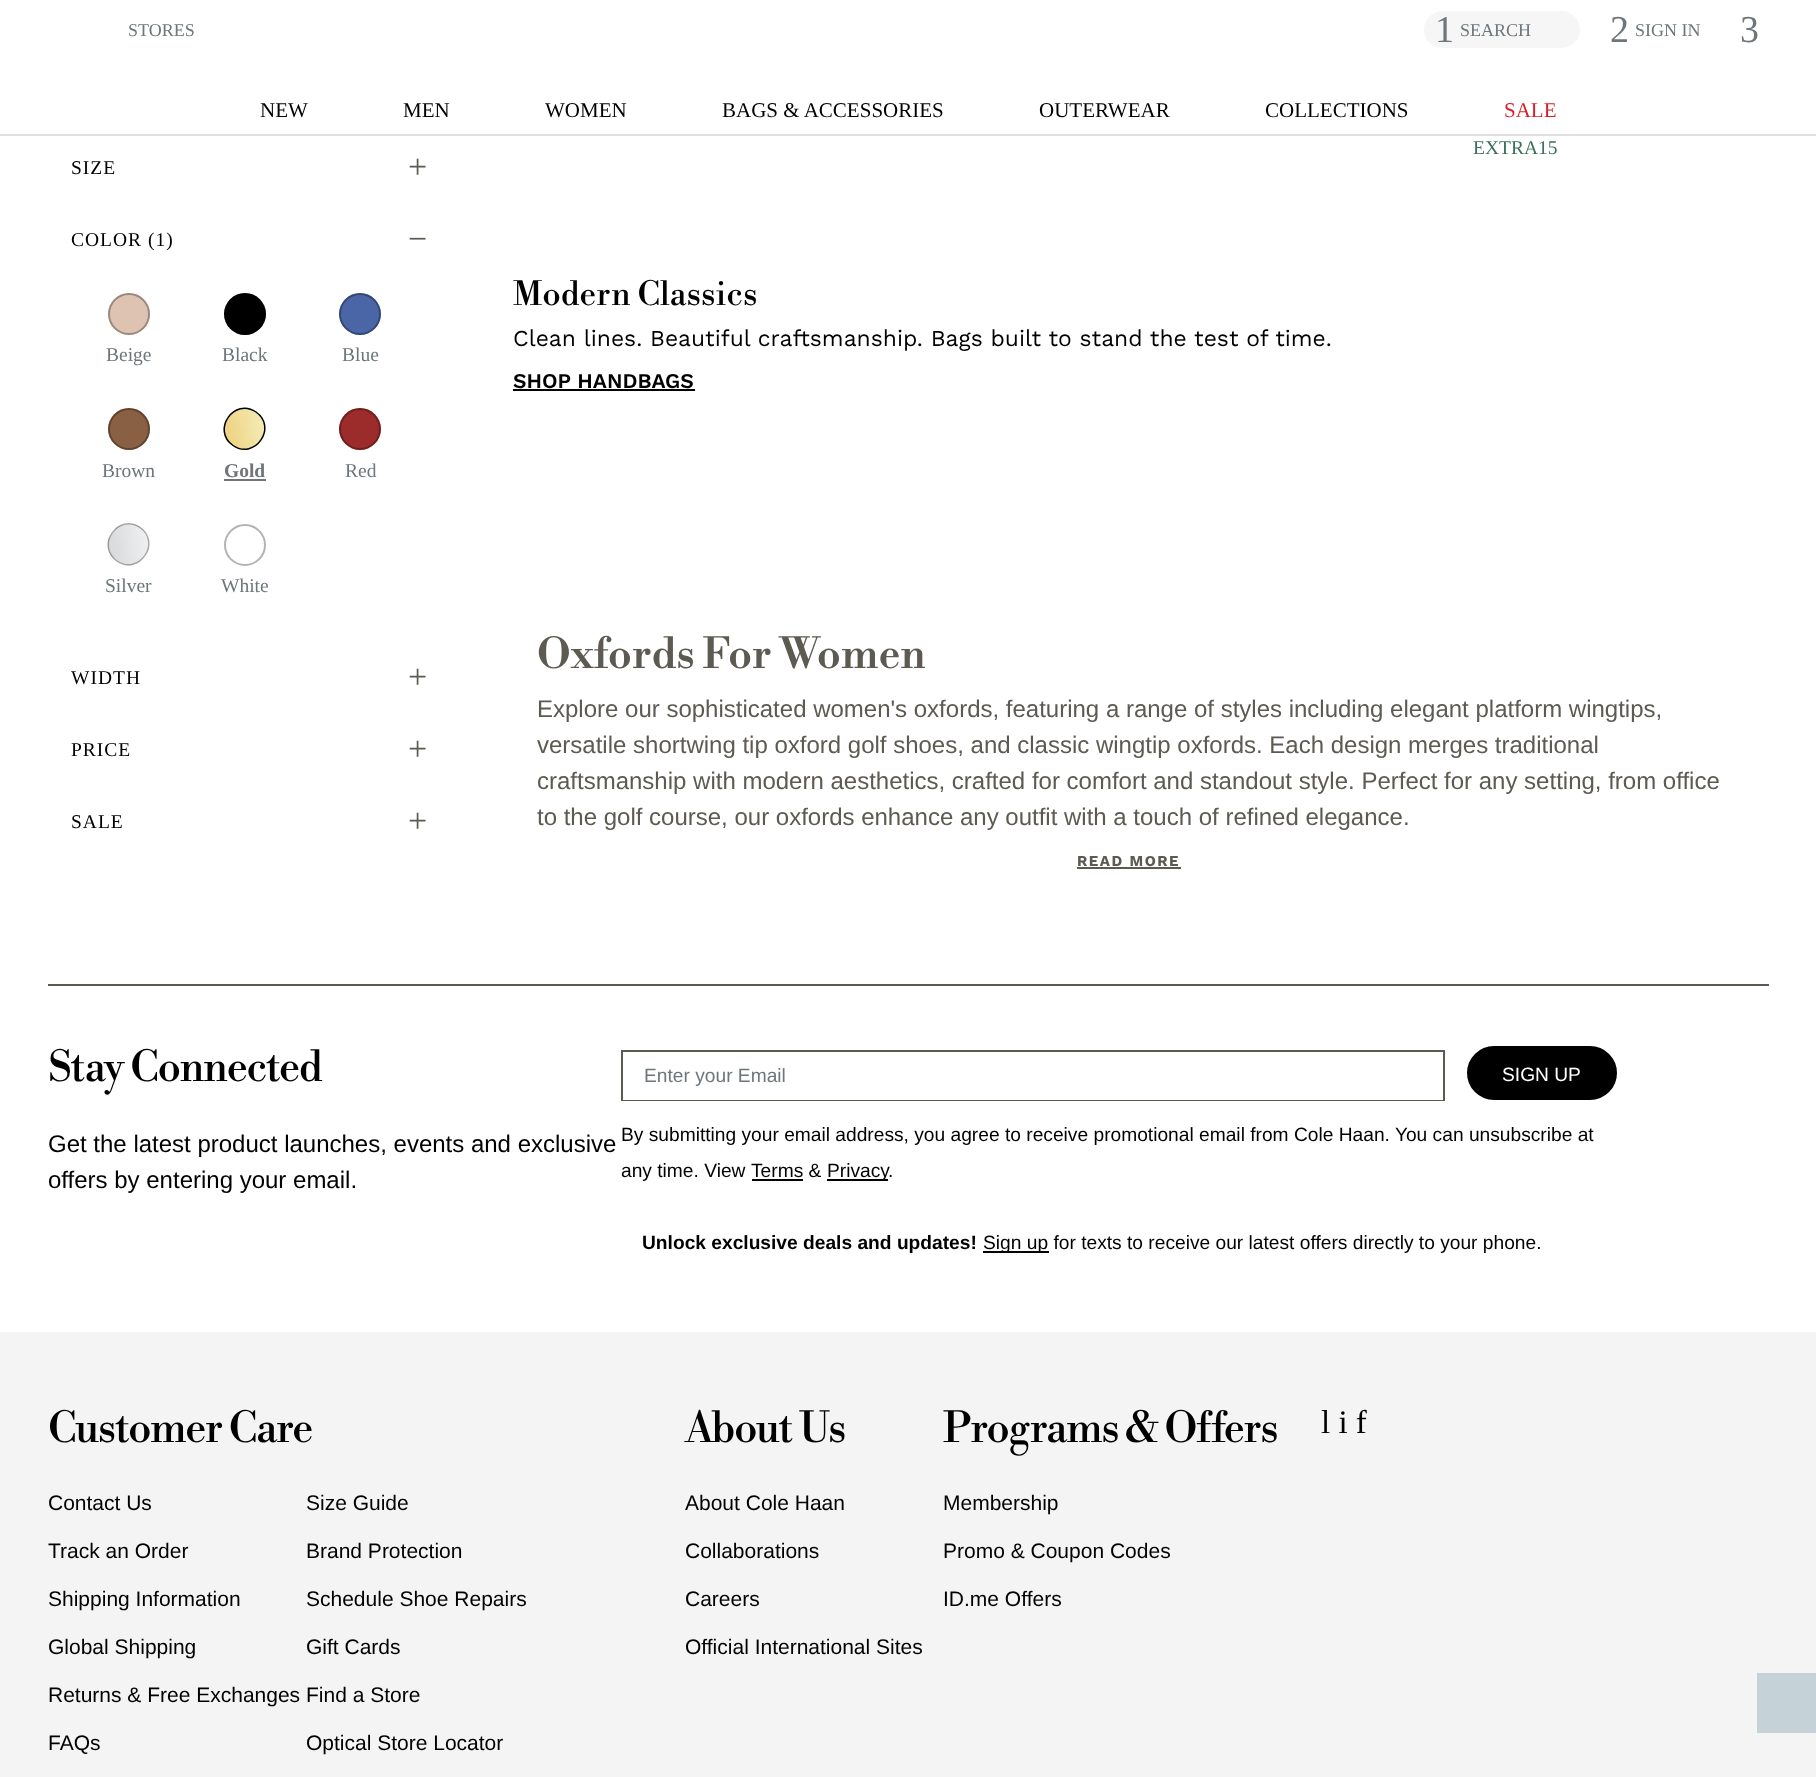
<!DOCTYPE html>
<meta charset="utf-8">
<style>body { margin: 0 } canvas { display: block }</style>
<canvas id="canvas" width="1816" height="1777"></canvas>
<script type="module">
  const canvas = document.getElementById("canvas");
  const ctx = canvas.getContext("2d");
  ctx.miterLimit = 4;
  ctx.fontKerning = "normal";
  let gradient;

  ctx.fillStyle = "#ffffff";
  ctx.fillRect(0, 0, 1816, 1777);
  ctx.font = "18px Liberation Serif";
  ctx.fillStyle = "#6e7679";
  ctx.fillText("STORES", 128, 36);
  ctx.fillStyle = "#f6f6f6";
  ctx.beginPath();
  ctx.roundRect(1424, 11, 156, 37, 18.5);
  ctx.fill();
  ctx.font = "38px Liberation Serif";
  ctx.fillStyle = "#6e7679";
  ctx.fillText("1", 1435, 42);
  ctx.font = "18px Liberation Serif";
  ctx.fillText("SEARCH", 1460, 36);
  ctx.font = "38px Liberation Serif";
  ctx.fillText("2", 1610, 42);
  ctx.font = "18px Liberation Serif";
  ctx.fillText("SIGN IN", 1635, 36);
  ctx.font = "38px Liberation Serif";
  ctx.fillText("3", 1740, 42);
  ctx.fillStyle = "#e0e0e0";
  ctx.fillRect(0, 134, 1816, 2);
  ctx.font = "21px Liberation Serif";
  ctx.fillStyle = "#000000";
  ctx.fillText("NEW", 260, 117);
  ctx.fillText("MEN", 403, 117);
  ctx.fillText("WOMEN", 545, 117);
  ctx.fillText("BAGS & ACCESSORIES", 722, 117);
  ctx.fillText("OUTERWEAR", 1039, 117);
  ctx.fillText("COLLECTIONS", 1265, 117);
  ctx.fillStyle = "#d61f28";
  ctx.fillText("SALE", 1504, 117);
  ctx.letterSpacing = "1px";
  ctx.font = "19.5px Liberation Serif";
  ctx.fillStyle = "#000000";
  ctx.fillText("SIZE", 71, 174);
  ctx.letterSpacing = "0px";
  ctx.font = "34px Liberation Serif";
  ctx.fillStyle = "#5d5a52";
  ctx.fillText("+", 408, 178);
  ctx.letterSpacing = "1px";
  ctx.font = "19.5px Liberation Serif";
  ctx.fillStyle = "#000000";
  ctx.fillText("COLOR (1)", 71, 246);
  ctx.letterSpacing = "0px";
  ctx.font = "34px Liberation Serif";
  ctx.fillStyle = "#5d5a52";
  ctx.fillText("−", 408, 250);
  ctx.fillStyle = "#dec3b2";
  ctx.beginPath();
  ctx.arc(129, 314, 21, 0, Math.PI * 2);
  ctx.fill();
  ctx.beginPath();
  ctx.arc(129, 314, 20, 0, Math.PI * 2);
  ctx.strokeStyle = "rgba(0, 0, 0, 0.3)";
  ctx.lineWidth = 2;
  ctx.stroke();
  ctx.font = "19.5px Liberation Serif";
  ctx.fillStyle = "#6e7679";
  ctx.fillText("Beige", 106, 361);
  ctx.fillStyle = "#000000";
  ctx.beginPath();
  ctx.arc(245, 314, 21, 0, Math.PI * 2);
  ctx.fill();
  ctx.beginPath();
  ctx.arc(245, 314, 20, 0, Math.PI * 2);
  ctx.stroke();
  ctx.fillStyle = "#6e7679";
  ctx.fillText("Black", 222, 361);
  ctx.fillStyle = "#4b66a6";
  ctx.beginPath();
  ctx.arc(360, 314, 21, 0, Math.PI * 2);
  ctx.fill();
  ctx.beginPath();
  ctx.arc(360, 314, 20, 0, Math.PI * 2);
  ctx.stroke();
  ctx.fillStyle = "#6e7679";
  ctx.fillText("Blue", 342, 361);
  ctx.fillStyle = "#8a6044";
  ctx.beginPath();
  ctx.arc(129, 429, 21, 0, Math.PI * 2);
  ctx.fill();
  ctx.beginPath();
  ctx.arc(129, 429, 20, 0, Math.PI * 2);
  ctx.stroke();
  ctx.fillStyle = "#6e7679";
  ctx.fillText("Brown", 102, 477);
  gradient = ctx.createLinearGradient(217, 434, 272, 424);
  gradient.addColorStop(0, "#eccc76");
  gradient.addColorStop(1, "#f5f1bf");
  ctx.fillStyle = gradient;
  ctx.beginPath();
  ctx.moveTo(224, 424);
  ctx.lineTo(234, 411);
  ctx.bezierCurveTo(238, 408, 244, 407, 249, 408);
  ctx.lineTo(262, 417);
  ctx.bezierCurveTo(265, 422, 266, 428, 265, 434);
  ctx.lineTo(256, 446);
  ctx.bezierCurveTo(251, 450, 245, 451, 239, 449);
  ctx.lineTo(227, 441);
  ctx.bezierCurveTo(224, 436, 223, 430, 224, 424);
  ctx.closePath();
  ctx.fill();
  ctx.beginPath();
  ctx.moveTo(256, 412);
  ctx.bezierCurveTo(278, 427.5, 254.5, 460.5, 233, 445.5);
  ctx.bezierCurveTo(211, 430, 234.5, 397, 256, 412);
  ctx.closePath();
  ctx.strokeStyle = "#000000";
  ctx.lineWidth = 1.5;
  ctx.stroke();
  ctx.font = "bold 19.5px Liberation Serif";
  ctx.fillStyle = "#6e7679";
  ctx.fillText("Gold", 224, 477);
  ctx.fillRect(224, 479, 42, 2);
  ctx.fillStyle = "#9c2b2b";
  ctx.beginPath();
  ctx.arc(360, 429, 21, 0, Math.PI * 2);
  ctx.fill();
  ctx.beginPath();
  ctx.arc(360, 429, 20, 0, Math.PI * 2);
  ctx.strokeStyle = "rgba(0, 0, 0, 0.3)";
  ctx.lineWidth = 2;
  ctx.stroke();
  ctx.font = "19.5px Liberation Serif";
  ctx.fillStyle = "#6e7679";
  ctx.fillText("Red", 345, 477);
  gradient = ctx.createLinearGradient(124, 517, 178, 508);
  gradient.addColorStop(0, "#d3d5d6");
  gradient.addColorStop(1, "#f3f4f5");
  ctx.fillStyle = gradient;
  ctx.beginPath();
  ctx.moveTo(140.5, 527);
  ctx.bezierCurveTo(143, 528.5, 144.5, 530.5, 146, 533);
  ctx.lineTo(133.5, 524);
  ctx.bezierCurveTo(136, 524.5, 138.5, 525.5, 140.5, 527);
  ctx.closePath();
  ctx.fill();
  gradient = ctx.createLinearGradient(101, 549, 156, 540);
  gradient.addColorStop(0, "#d3d5d6");
  gradient.addColorStop(1, "#f3f4f5");
  ctx.fillStyle = gradient;
  ctx.beginPath();
  ctx.moveTo(108, 539);
  ctx.lineTo(117, 527);
  ctx.bezierCurveTo(122, 524, 128, 523, 134, 524);
  ctx.lineTo(146, 533);
  ctx.bezierCurveTo(149, 538, 150, 544, 149, 550);
  ctx.lineTo(140, 562);
  ctx.bezierCurveTo(135, 565, 129, 566, 124, 565);
  ctx.lineTo(111, 556);
  ctx.bezierCurveTo(108, 551, 107, 545, 108, 539);
  ctx.closePath();
  ctx.fill();
  gradient = ctx.createLinearGradient(79, 581, 133, 571);
  gradient.addColorStop(0, "#d3d5d6");
  gradient.addColorStop(1, "#f3f4f5");
  ctx.fillStyle = gradient;
  ctx.beginPath();
  ctx.moveTo(124, 565);
  ctx.bezierCurveTo(118.5, 563.5, 114, 560.5, 111, 556);
  ctx.closePath();
  ctx.fill();
  ctx.beginPath();
  ctx.moveTo(140, 527.5);
  ctx.bezierCurveTo(162, 543, 138.5, 576, 117, 561);
  ctx.bezierCurveTo(95, 545.5, 118.5, 512.5, 140, 527.5);
  ctx.closePath();
  ctx.lineWidth = 1.5;
  ctx.stroke();
  ctx.fillStyle = "#6e7679";
  ctx.fillText("Silver", 105, 592);
  ctx.beginPath();
  ctx.arc(245, 545, 20, 0, Math.PI * 2);
  ctx.strokeStyle = "#b3b3b3";
  ctx.lineWidth = 2;
  ctx.stroke();
  ctx.fillText("White", 221, 592);
  ctx.letterSpacing = "1px";
  ctx.fillStyle = "#000000";
  ctx.fillText("WIDTH", 71, 684);
  ctx.letterSpacing = "0px";
  ctx.font = "34px Liberation Serif";
  ctx.fillStyle = "#5d5a52";
  ctx.fillText("+", 408, 688);
  ctx.letterSpacing = "1px";
  ctx.font = "19.5px Liberation Serif";
  ctx.fillStyle = "#000000";
  ctx.fillText("PRICE", 71, 756);
  ctx.letterSpacing = "0px";
  ctx.font = "34px Liberation Serif";
  ctx.fillStyle = "#5d5a52";
  ctx.fillText("+", 408, 760);
  ctx.letterSpacing = "1px";
  ctx.font = "19.5px Liberation Serif";
  ctx.fillStyle = "#000000";
  ctx.fillText("SALE", 71, 828);
  ctx.letterSpacing = "0px";
  ctx.font = "34px Liberation Serif";
  ctx.fillStyle = "#5d5a52";
  ctx.fillText("+", 408, 832);
  ctx.font = "19.5px Liberation Serif";
  ctx.fillStyle = "#3a6f59";
  ctx.fillText("EXTRA15", 1473, 154);
  ctx.font = "33px Libre Bodoni";
  ctx.fillStyle = "#000000";
  ctx.fillText("Modern Classics", 513, 305);
  ctx.font = "22.85px Work Sans";
  ctx.fillText("Clean lines. Beautiful craftsmanship. Bags built to stand the test of time.", 513, 346);
  ctx.font = "600 21px Work Sans";
  ctx.fillText("SHOP HANDBAGS", 513, 388);
  ctx.fillRect(513, 389, 182, 2);
  ctx.font = "500 42px Libre Bodoni";
  ctx.fillStyle = "#5d5a52";
  ctx.fillText("Oxfords For Women", 537, 668);
  ctx.font = "24px Liberation Sans";
  ctx.fillText("Explore our sophisticated women's oxfords, featuring a range of styles including elegant platform wingtips,", 537, 717);
  ctx.fillText("versatile shortwing tip oxford golf shoes, and classic wingtip oxfords. Each design merges traditional", 537, 753);
  ctx.fillText("craftsmanship with modern aesthetics, crafted for comfort and standout style. Perfect for any setting, from office", 537, 789);
  ctx.fillText("to the golf course, our oxfords enhance any outfit with a touch of refined elegance.", 537, 825);
  ctx.letterSpacing = "1.5px";
  ctx.font = "bold 15px Work Sans";
  ctx.fillText("READ MORE", 1077, 866);
  ctx.fillRect(1077, 867, 104, 2);
  ctx.fillRect(48, 984, 1721, 2);
  ctx.letterSpacing = "-1.5px";
  ctx.font = "42px Libre Bodoni";
  ctx.fillStyle = "#000000";
  ctx.fillText("Stay Connected", 48, 1081);
  ctx.letterSpacing = "0px";
  ctx.font = "24px Liberation Sans";
  ctx.fillText("Get the latest product launches, events and exclusive", 48, 1152);
  ctx.fillText("offers by entering your email.", 48, 1188);
  ctx.strokeStyle = "#5d5a52";
  ctx.strokeRect(622, 1051, 822, 49);
  ctx.fillStyle = "#ffffff";
  ctx.fillRect(623, 1099, 820, 1);
  ctx.font = "19.2px Liberation Sans";
  ctx.fillStyle = "#6e7679";
  ctx.fillText("Enter your Email", 644, 1082);
  ctx.fillStyle = "#000000";
  ctx.beginPath();
  ctx.roundRect(1470, 1049, 144, 48, 24);
  ctx.fill();
  ctx.strokeStyle = "#000000";
  ctx.lineWidth = 6;
  ctx.stroke();
  ctx.fillStyle = "#ffffff";
  ctx.fillText("SIGN UP", 1502, 1081);
  ctx.fillStyle = "#000000";
  ctx.fillText("By submitting your email address, you agree to receive promotional email from Cole Haan. You can unsubscribe at", 621, 1141);
  ctx.fillText("any time. View", 621, 1177);
  ctx.fillText("Terms &", 751, 1177);
  ctx.fillRect(752, 1179, 51, 2);
  ctx.fillRect(827, 1179, 61, 2);
  ctx.fillText("Privacy", 827, 1177);
  ctx.fillText(".", 888, 1177);
  ctx.font = "bold 19.2px Liberation Sans";
  ctx.fillText("Unlock exclusive deals and updates!", 642, 1249);
  ctx.fillRect(983, 1251, 66, 2);
  ctx.font = "19.2px Liberation Sans";
  ctx.fillText("Sign up for texts to receive our latest offers directly to your phone.", 983, 1249);
  ctx.fillStyle = "#f4f4f4";
  ctx.fillRect(0, 1332, 1816, 445);
  ctx.letterSpacing = "-1.5px";
  ctx.font = "42px Libre Bodoni";
  ctx.fillStyle = "#000000";
  ctx.fillText("Customer Care", 48, 1442);
  ctx.letterSpacing = "0px";
  ctx.font = "21px Liberation Sans";
  ctx.fillText("Contact Us", 48, 1510);
  ctx.fillText("Track an Order", 48, 1558);
  ctx.fillText("Shipping Information", 48, 1606);
  ctx.fillText("Global Shipping", 48, 1654);
  ctx.fillText("Returns & Free Exchanges Find a Store", 48, 1702);
  ctx.fillText("FAQs", 48, 1750);
  ctx.letterSpacing = "-1.5px";
  ctx.font = "42px Libre Bodoni";
  ctx.fillText("About Us", 685, 1442);
  ctx.letterSpacing = "0px";
  ctx.font = "21px Liberation Sans";
  ctx.fillText("About Cole Haan", 685, 1510);
  ctx.fillText("Collaborations", 685, 1558);
  ctx.fillText("Careers", 685, 1606);
  ctx.fillText("Official International Sites", 685, 1654);
  ctx.letterSpacing = "-1.5px";
  ctx.font = "42px Libre Bodoni";
  ctx.fillText("Programs & Offers", 943, 1442);
  ctx.letterSpacing = "0px";
  ctx.font = "21px Liberation Sans";
  ctx.fillText("Membership", 943, 1510);
  ctx.fillText("Promo & Coupon Codes", 943, 1558);
  ctx.fillText("ID.me Offers", 943, 1606);
  ctx.font = "33px Liberation Serif";
  ctx.fillText("l i f", 1321, 1433);
  ctx.font = "21px Liberation Sans";
  ctx.fillText("Size Guide", 306, 1510);
  ctx.fillText("Brand Protection", 306, 1558);
  ctx.fillText("Schedule Shoe Repairs", 306, 1606);
  ctx.fillText("Gift Cards", 306, 1654);
  ctx.fillText("Optical Store Locator", 306, 1750);
  ctx.fillStyle = "#c5d3d9";
  ctx.fillRect(1757, 1673, 59, 60);
</script>
